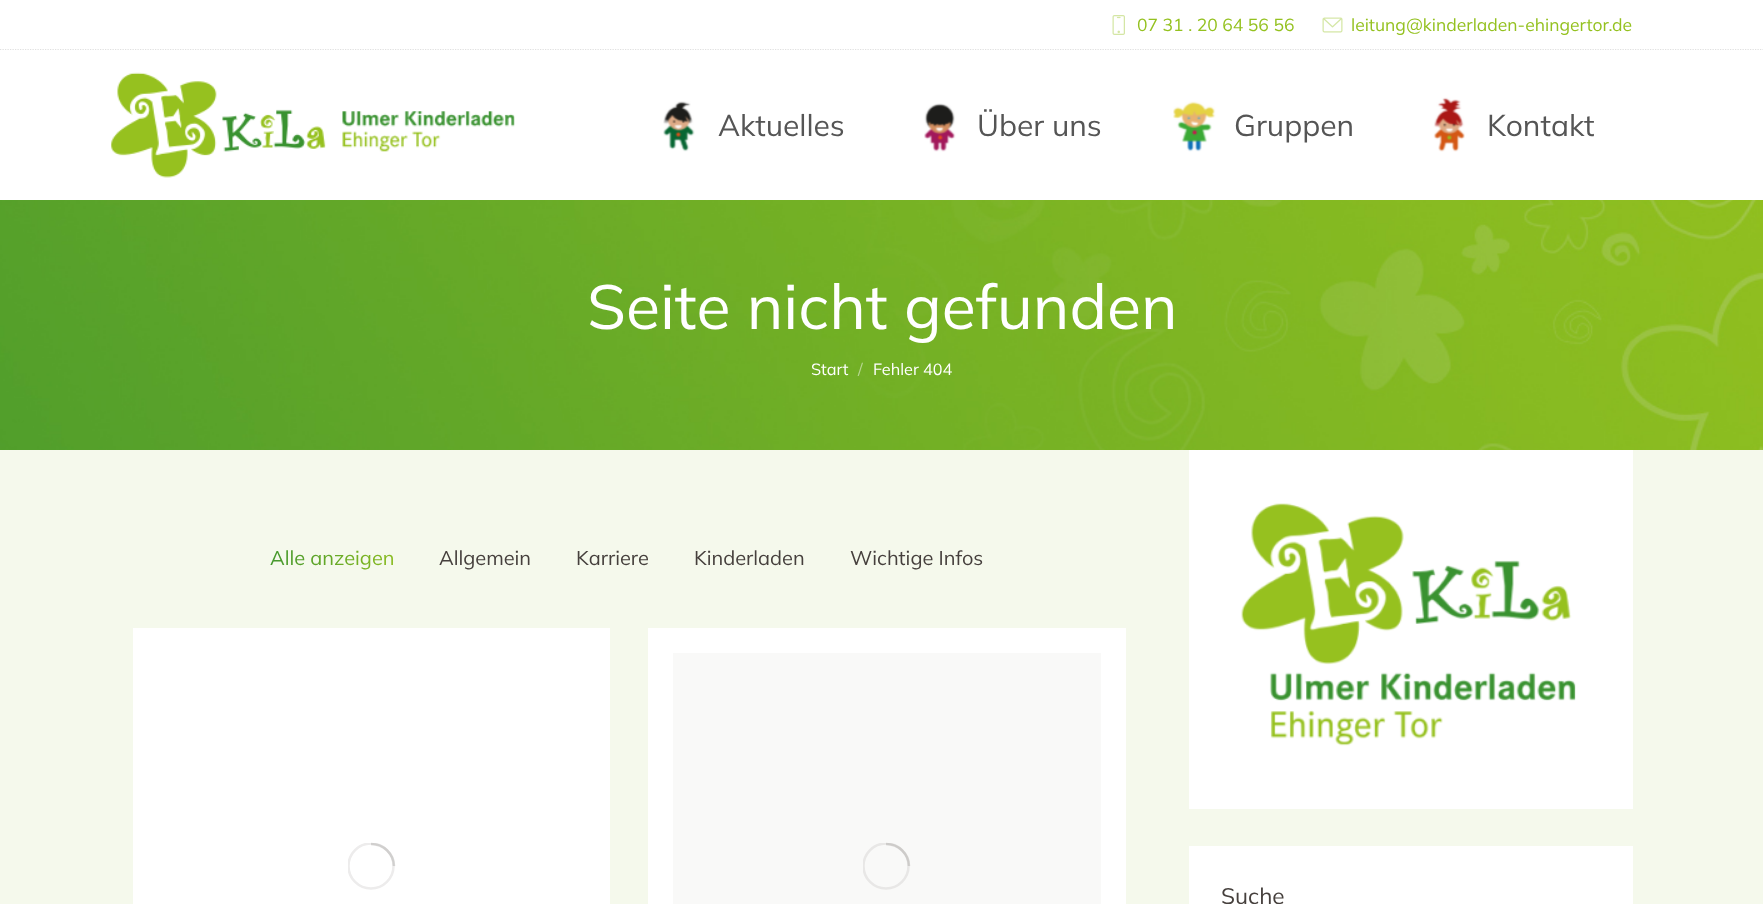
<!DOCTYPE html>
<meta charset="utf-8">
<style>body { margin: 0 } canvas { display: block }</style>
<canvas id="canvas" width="1763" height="904"></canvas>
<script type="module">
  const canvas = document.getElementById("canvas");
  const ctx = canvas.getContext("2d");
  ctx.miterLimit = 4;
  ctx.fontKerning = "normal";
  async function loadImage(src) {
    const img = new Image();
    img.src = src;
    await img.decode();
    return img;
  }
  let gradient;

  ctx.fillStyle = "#f5f9ec";
  ctx.fillRect(0, 0, 1763, 904);
  ctx.fillStyle = "#ffffff";
  ctx.fillRect(0, 0, 1763, 200);
  ctx.drawImage(await loadImage("img1.png"), 1112, 15, 13, 20);
  ctx.font = "17.5px Mulish";
  ctx.fillStyle = "#94c11f";
  ctx.fillText("07 31 . 20 64 56 56", 1137, 31);
  ctx.drawImage(await loadImage("img2.png"), 1322, 17, 21, 16);
  ctx.fillText("leitung@kinderladen-ehingertor.de", 1351, 31);
  ctx.beginPath();
  ctx.moveTo(-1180, 49.5);
  ctx.lineTo(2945, 49.5);
  ctx.strokeStyle = "#e0e0e0";
  ctx.lineWidth = 1.2;
  ctx.setLineDash([1.25, 1.25]);
  ctx.stroke();
  ctx.drawImage(await loadImage("img3.png"), 111, 72, 404, 106);
  ctx.drawImage(await loadImage("img4.png"), 663, 101, 32, 51);
  ctx.font = "30px Mulish";
  ctx.fillStyle = "#555555";
  ctx.fillText("Aktuelles", 718, 136);
  ctx.drawImage(await loadImage("img5.png"), 924, 103, 32, 49);
  ctx.fillText("Über uns", 977, 136);
  ctx.drawImage(await loadImage("img6.png"), 1173, 101, 43, 51);
  ctx.fillText("Gruppen", 1234, 136);
  ctx.drawImage(await loadImage("img7.png"), 1433, 97, 32, 55);
  ctx.fillText("Kontakt", 1487, 136);
  ctx.drawImage(await loadImage("img8.png"), 0, 200, 1763, 250);
  ctx.font = "62.5px Mulish";
  ctx.fillStyle = "#ffffff";
  ctx.fillText("Seite nicht gefunden", 587, 329);
  ctx.font = "16.25px Mulish";
  ctx.fillText("Start", 811, 375);
  ctx.fillStyle = "#b8d792";
  ctx.fillText("/", 858, 375);
  ctx.fillStyle = "#ffffff";
  ctx.fillText("Fehler 404", 873, 375);
  ctx.font = "20px Mulish";
  gradient = ctx.createLinearGradient(250, 558, 413, 558);
  gradient.addColorStop(0, "#399230");
  gradient.addColorStop(1, "#94c11f");
  ctx.fillStyle = gradient;
  ctx.fillText("Alle anzeigen", 270, 565);
  ctx.fillStyle = "#46403d";
  ctx.fillText("Allgemein", 439, 565);
  ctx.fillText("Karriere", 576, 565);
  ctx.fillText("Kinderladen", 694, 565);
  ctx.fillText("Wichtige Infos", 850, 565);
  ctx.fillStyle = "#ffffff";
  ctx.fillRect(133, 628, 477, 276);
  ctx.save();
  ctx.beginPath();
  ctx.rect(348, 843, 47, 47);
  ctx.clip();
  ctx.beginPath();
  ctx.arc(371, 866, 22.5, 0, Math.PI * 2);
  ctx.strokeStyle = "#edecec";
  ctx.lineWidth = 2.5;
  ctx.setLineDash([]);
  ctx.stroke();
  ctx.restore();
  ctx.beginPath();
  ctx.moveTo(394, 866);
  ctx.bezierCurveTo(394, 854, 383.5, 844, 371, 844);
  ctx.strokeStyle = "rgba(122, 118, 116, 0.25)";
  ctx.lineWidth = 2.5;
  ctx.setLineDash([]);
  ctx.stroke();
  ctx.fillRect(648, 628, 478, 276);
  ctx.fillStyle = "#f9f9f8";
  ctx.fillRect(673, 653, 428, 251);
  ctx.save();
  ctx.beginPath();
  ctx.rect(863, 843, 47, 47);
  ctx.clip();
  ctx.beginPath();
  ctx.arc(886, 866, 22.5, 0, Math.PI * 2);
  ctx.strokeStyle = "#e8e7e6";
  ctx.stroke();
  ctx.restore();
  ctx.beginPath();
  ctx.moveTo(909, 866);
  ctx.bezierCurveTo(909, 854, 898.5, 844, 886, 844);
  ctx.stroke();
  ctx.fillStyle = "#ffffff";
  ctx.fillRect(1189, 450, 444, 359);
  ctx.drawImage(await loadImage("img9.png"), 1241, 503, 335, 243);
  ctx.fillRect(1189, 846, 444, 58);
  ctx.font = "22.5px Mulish";
  ctx.fillStyle = "#46403d";
  ctx.fillText("Suche", 1221, 904);
</script>
